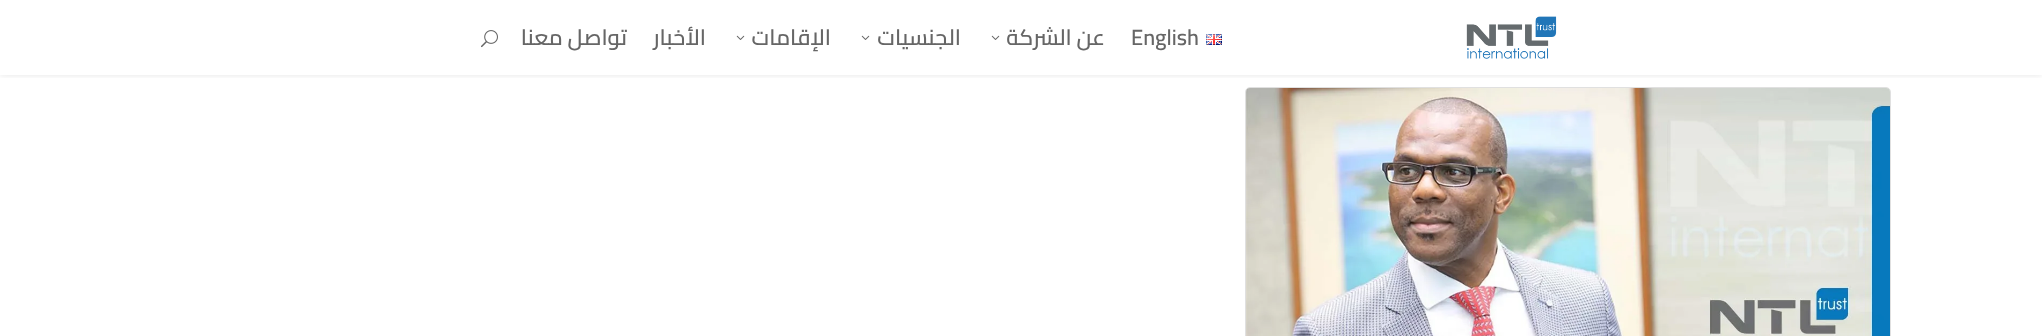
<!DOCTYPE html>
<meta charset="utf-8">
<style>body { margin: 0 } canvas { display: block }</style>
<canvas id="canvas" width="2042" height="336"></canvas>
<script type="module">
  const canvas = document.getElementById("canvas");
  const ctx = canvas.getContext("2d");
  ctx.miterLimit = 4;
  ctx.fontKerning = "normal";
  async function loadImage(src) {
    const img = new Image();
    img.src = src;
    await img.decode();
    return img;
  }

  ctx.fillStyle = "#ffffff";
  ctx.fillRect(0, 0, 2042, 336);
  ctx.save();
  ctx.beginPath();
  ctx.rect(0, 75, 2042, 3);
  ctx.clip();
  ctx.fillStyle = "rgba(0, 0, 0, 0.1)";
  ctx.filter = "blur(3.5px)";
  ctx.beginPath();
  ctx.rect(0, 0, 2042, 75);
  ctx.fill();
  ctx.filter = "none";
  ctx.restore();
  ctx.drawImage(await loadImage("img1.png"), 1466, 16, 91, 43);
  ctx.drawImage(await loadImage("img2.png"), 1206, 34, 16, 11);
  ctx.font = "600 22px Cairo";
  ctx.fillStyle = "#666666";
  ctx.fillText("English", 1131, 45);
  ctx.direction = "rtl";
  ctx.fillText("عن الشركة", 1105, 45);
  ctx.drawImage(await loadImage("img3.png"), 991, 35, 9, 5);
  ctx.fillText("الجنسيات", 961, 45);
  ctx.drawImage(await loadImage("img3.png"), 861, 35, 9, 5);
  ctx.fillText("الإقامات", 831, 45);
  ctx.drawImage(await loadImage("img3.png"), 736, 35, 9, 5);
  ctx.fillText("الأخبار", 706, 45);
  ctx.fillText("تواصل معنا", 627, 45);
  ctx.drawImage(await loadImage("img4.png"), 481, 30, 17, 18);
  ctx.beginPath();
  ctx.roundRect(1245.5, 87.5, 645, 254, 4.5);
  ctx.strokeStyle = "#e0e0e0";
  ctx.stroke();
  ctx.drawImage(await loadImage("img5.png"), 1246, 88, 644, 248);
</script>
